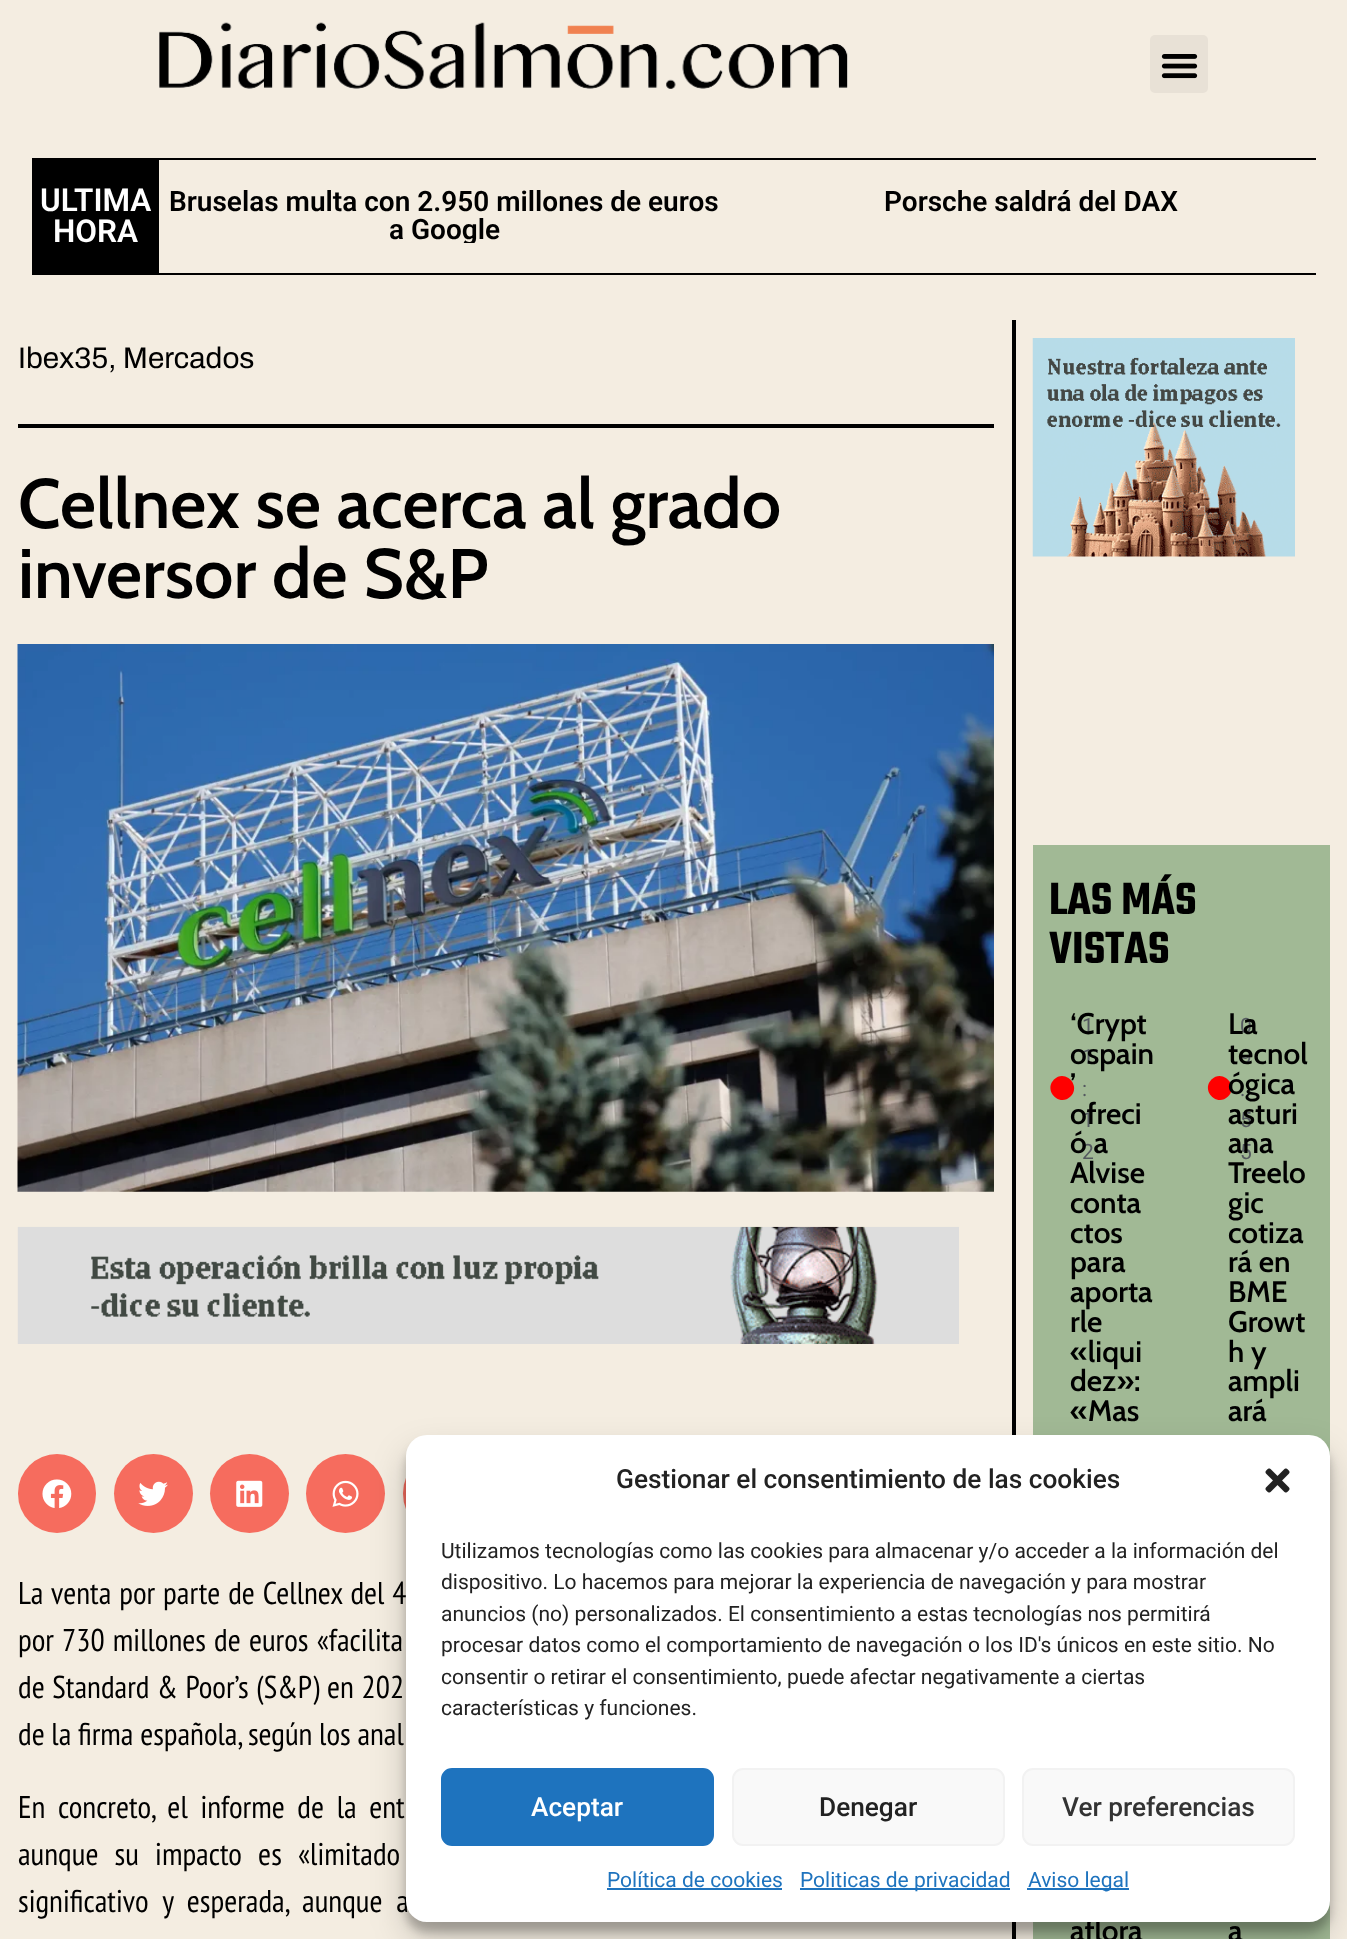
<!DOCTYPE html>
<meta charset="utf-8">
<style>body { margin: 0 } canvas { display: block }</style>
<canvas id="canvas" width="1347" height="1939"></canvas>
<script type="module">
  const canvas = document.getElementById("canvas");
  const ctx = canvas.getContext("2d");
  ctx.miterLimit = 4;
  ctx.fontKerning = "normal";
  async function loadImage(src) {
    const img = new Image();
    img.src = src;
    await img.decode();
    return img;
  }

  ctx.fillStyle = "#f4ede1";
  ctx.fillRect(0, 0, 1347, 1939);
  ctx.drawImage(await loadImage("img1.png"), 159, 22, 689, 67);
  ctx.fillStyle = "#e8e1d6";
  ctx.beginPath();
  ctx.roundRect(1150, 35, 58, 58, 5);
  ctx.fill();
  ctx.drawImage(await loadImage("img2.png"), 1161, 54, 37, 25);
  ctx.fillStyle = "#000000";
  ctx.fillRect(32, 158, 1284, 2);
  ctx.fillRect(32, 273, 1284, 2);
  ctx.fillRect(32, 160, 127, 113);
  ctx.font = "600 31.5px Roboto";
  ctx.fillStyle = "#ffffff";
  ctx.fillText("ULTIMA", 40, 211);
  ctx.fillText("HORA", 53, 242);
  ctx.font = "600 28px Roboto";
  ctx.fillStyle = "#000000";
  ctx.fillText("Bruselas multa con 2.950 millones de euros", 169, 211);
  ctx.save();
  ctx.beginPath();
  ctx.rect(159, 187, 1157, 56);
  ctx.clip();
  ctx.fillText("a Google", 389, 239);
  ctx.restore();
  ctx.fillText("Porsche saldrá del DAX", 884, 211);
  ctx.font = "29.75px Archivo";
  ctx.fillText("Ibex35, Mercados", 18, 368);
  ctx.fillRect(18, 424, 976, 4);
  ctx.font = "600 70px Cabin";
  ctx.fillText("Cellnex se acerca al grado", 18, 528);
  ctx.fillText("inversor de S&P", 18, 598);
  ctx.drawImage(await loadImage("img3.png"), 17, 644, 977, 548);
  ctx.drawImage(await loadImage("img4.png"), 17, 1226, 942, 118);
  ctx.fillStyle = "#f66c5e";
  ctx.beginPath();
  ctx.roundRect(18, 1454, 78, 79, 39);
  ctx.fill();
  ctx.drawImage(await loadImage("img5.png"), 42, 1479, 30, 29);
  ctx.beginPath();
  ctx.arc(153.5, 1493.5, 39.5, 0, Math.PI * 2);
  ctx.fill();
  ctx.drawImage(await loadImage("img6.png"), 138, 1481, 30, 25);
  ctx.beginPath();
  ctx.arc(249.5, 1493.5, 39.5, 0, Math.PI * 2);
  ctx.fill();
  ctx.drawImage(await loadImage("img7.png"), 236, 1480, 27, 27);
  ctx.beginPath();
  ctx.arc(345.5, 1493.5, 39.5, 0, Math.PI * 2);
  ctx.fill();
  ctx.drawImage(await loadImage("img8.png"), 332, 1480, 27, 27);
  ctx.beginPath();
  ctx.roundRect(403, 1454, 78, 79, 39);
  ctx.fill();
  ctx.wordSpacing = "1.25px";
  ctx.font = "31.5px PT Sans Narrow";
  ctx.fillStyle = "#000000";
  ctx.fillText("La venta por parte de Cellnex del 4", 18, 1604);
  ctx.wordSpacing = "1.5px";
  ctx.fillText("por 730 millones de euros «facilita", 18, 1651);
  ctx.wordSpacing = "1px";
  ctx.fillText("de Standard & Poor’s (S&P) en 202", 18, 1698);
  ctx.wordSpacing = "0px";
  ctx.fillText("de la firma española, según los anal", 18, 1745);
  ctx.wordSpacing = "6px";
  ctx.fillText("En concreto, el informe de la ent", 18, 1818);
  ctx.wordSpacing = "9.5px";
  ctx.fillText("aunque su impacto es «limitado", 18, 1865);
  ctx.wordSpacing = "7px";
  ctx.fillText("significativo y esperada, aunque a", 18, 1912);
  ctx.fillRect(1012, 320, 4, 1619);
  ctx.drawImage(await loadImage("img9.png"), 1032, 338, 263, 219);
  ctx.fillStyle = "#a1b995";
  ctx.fillRect(1033, 845, 297, 1094);
  ctx.wordSpacing = "0px";
  ctx.font = "600 49px Teko";
  ctx.fillStyle = "#000000";
  ctx.fillText("LAS MÁS", 1049, 914);
  ctx.fillText("VISTAS", 1049, 963);
  ctx.font = "21px Roboto";
  ctx.fillStyle = "#54595f";
  ctx.fillText("1", 1082, 1033);
  ctx.font = "600 29.75px Cabin";
  ctx.fillStyle = "#000000";
  ctx.fillText("‘Crypt", 1070, 1034);
  ctx.font = "21px Roboto";
  ctx.fillStyle = "#54595f";
  ctx.fillText("1", 1082, 1064);
  ctx.font = "600 29.75px Cabin";
  ctx.fillStyle = "#000000";
  ctx.fillText("ospain", 1070, 1064);
  ctx.fillStyle = "#ff0000";
  ctx.beginPath();
  ctx.moveTo(1054, 1079.5);
  ctx.bezierCurveTo(1065, 1068.5, 1081.5, 1085.5, 1070.5, 1096.5);
  ctx.bezierCurveTo(1059.5, 1107.5, 1043, 1090.5, 1054, 1079.5);
  ctx.closePath();
  ctx.fill();
  ctx.fillStyle = "#000000";
  ctx.fillText("’", 1070, 1094);
  ctx.font = "21px Roboto";
  ctx.fillStyle = "#54595f";
  ctx.fillText("1", 1082, 1127);
  ctx.font = "600 29.75px Cabin";
  ctx.fillStyle = "#000000";
  ctx.fillText("ofreci", 1070, 1124);
  ctx.font = "21px Roboto";
  ctx.fillStyle = "#54595f";
  ctx.fillText("2", 1082, 1159);
  ctx.font = "600 29.75px Cabin";
  ctx.fillStyle = "#000000";
  ctx.fillText("ó a", 1070, 1153);
  ctx.fillText("Alvise", 1070, 1183);
  ctx.fillText("conta", 1070, 1213);
  ctx.fillText("ctos", 1070, 1243);
  ctx.fillText("para", 1070, 1272);
  ctx.fillText("aporta", 1070, 1302);
  ctx.fillText("rle", 1070, 1332);
  ctx.fillText("«liqui", 1070, 1362);
  ctx.fillText("dez»:", 1070, 1391);
  ctx.fillText("«Mas", 1070, 1421);
  ctx.font = "21px Roboto";
  ctx.fillStyle = "#54595f";
  ctx.fillText(":", 1082, 1096);
  ctx.fillText("0", 1240, 1033);
  ctx.font = "600 29.75px Cabin";
  ctx.fillStyle = "#000000";
  ctx.fillText("La", 1228, 1034);
  ctx.font = "21px Roboto";
  ctx.fillStyle = "#54595f";
  ctx.fillText("9", 1240, 1064);
  ctx.font = "600 29.75px Cabin";
  ctx.fillStyle = "#000000";
  ctx.fillText("tecnol", 1228, 1064);
  ctx.fillStyle = "#ff0000";
  ctx.beginPath();
  ctx.moveTo(1211.5, 1079.5);
  ctx.bezierCurveTo(1222.5, 1068.5, 1239, 1085.5, 1228, 1096.5);
  ctx.bezierCurveTo(1217, 1107.5, 1200.5, 1090.5, 1211.5, 1079.5);
  ctx.closePath();
  ctx.fill();
  ctx.font = "21px Roboto";
  ctx.fillStyle = "#54595f";
  ctx.fillText(":", 1240, 1096);
  ctx.font = "600 29.75px Cabin";
  ctx.fillStyle = "#000000";
  ctx.fillText("ógica", 1228, 1094);
  ctx.font = "21px Roboto";
  ctx.fillStyle = "#54595f";
  ctx.fillText("5", 1240, 1127);
  ctx.font = "600 29.75px Cabin";
  ctx.fillStyle = "#000000";
  ctx.fillText("asturi", 1228, 1124);
  ctx.font = "21px Roboto";
  ctx.fillStyle = "#54595f";
  ctx.fillText("5", 1240, 1159);
  ctx.font = "600 29.75px Cabin";
  ctx.fillStyle = "#000000";
  ctx.fillText("ana", 1228, 1153);
  ctx.fillText("Treelo", 1228, 1183);
  ctx.fillText("gic", 1228, 1213);
  ctx.fillText("cotiza", 1228, 1243);
  ctx.fillText("rá en", 1228, 1272);
  ctx.fillText("BME", 1228, 1302);
  ctx.fillText("Growt", 1228, 1332);
  ctx.fillText("h y", 1228, 1362);
  ctx.fillText("ampli", 1228, 1391);
  ctx.fillText("ará", 1228, 1421);
  ctx.fillText("aflora", 1070, 1941);
  ctx.fillText("a", 1228, 1941);
  ctx.fillStyle = "rgba(0, 0, 0, 0.23)";
  ctx.filter = "blur(5px)";
  ctx.beginPath();
  ctx.roundRect(406, 1446, 924, 486, 21);
  ctx.fill();
  ctx.filter = "none";
  ctx.fillStyle = "rgba(0, 0, 0, 0.19)";
  ctx.filter = "blur(17.5px)";
  ctx.beginPath();
  ctx.roundRect(406, 1453, 924, 486, 21);
  ctx.fill();
  ctx.filter = "none";
  ctx.fillStyle = "#ffffff";
  ctx.beginPath();
  ctx.roundRect(406, 1435, 924, 487, 21);
  ctx.fill();
  ctx.font = "500 26.25px Roboto";
  ctx.fillStyle = "#222222";
  ctx.fillText("Gestionar el consentimiento de las cookies", 616, 1488);
  ctx.drawImage(await loadImage("img10.png"), 1265, 1468, 25, 25);
  ctx.font = "21px Roboto";
  ctx.fillText("Utilizamos tecnologías como las cookies para almacenar y/o acceder a la información del", 441, 1558);
  ctx.fillText("dispositivo. Lo hacemos para mejorar la experiencia de navegación y para mostrar", 441, 1589);
  ctx.fillText("anuncios (no) personalizados. El consentimiento a estas tecnologías nos permitirá", 441, 1621);
  ctx.fillText("procesar datos como el comportamiento de navegación o los ID's únicos en este sitio. No", 441, 1652);
  ctx.fillText("consentir o retirar el consentimiento, puede afectar negativamente a ciertas", 441, 1684);
  ctx.fillText("características y funciones.", 441, 1715);
  ctx.fillStyle = "#1e73be";
  ctx.beginPath();
  ctx.roundRect(442, 1769, 271, 76, 10);
  ctx.fill();
  ctx.strokeStyle = "#1e73be";
  ctx.lineWidth = 2;
  ctx.stroke();
  ctx.font = "500 26.25px Roboto";
  ctx.fillStyle = "#ffffff";
  ctx.fillText("Aceptar", 531, 1816);
  ctx.fillStyle = "#f9f9f9";
  ctx.beginPath();
  ctx.roundRect(733, 1769, 271, 76, 10);
  ctx.fill();
  ctx.strokeStyle = "#f2f2f2";
  ctx.stroke();
  ctx.fillStyle = "#222222";
  ctx.fillText("Denegar", 819, 1816);
  ctx.fillStyle = "#f9f9f9";
  ctx.beginPath();
  ctx.roundRect(1023, 1769, 271, 76, 10);
  ctx.fill();
  ctx.stroke();
  ctx.fillStyle = "#333333";
  ctx.fillText("Ver preferencias", 1062, 1816);
  ctx.font = "21px Roboto";
  ctx.fillStyle = "#1e73be";
  ctx.fillText("Política de cookies", 607, 1887);
  ctx.fillRect(607, 1888, 175, 2);
  ctx.fillRect(800, 1888, 210, 2);
  ctx.fillText("Politicas de privacidad", 800, 1887);
  ctx.fillRect(1027, 1888, 102, 2);
  ctx.fillText("Aviso legal", 1028, 1887);
</script>
